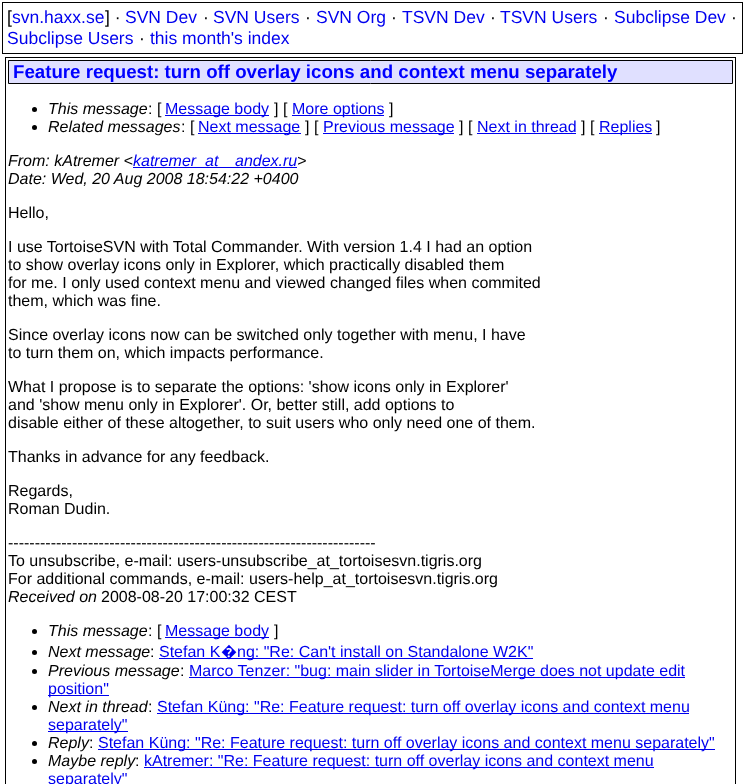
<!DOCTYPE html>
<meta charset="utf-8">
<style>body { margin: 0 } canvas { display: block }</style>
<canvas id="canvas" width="745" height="784"></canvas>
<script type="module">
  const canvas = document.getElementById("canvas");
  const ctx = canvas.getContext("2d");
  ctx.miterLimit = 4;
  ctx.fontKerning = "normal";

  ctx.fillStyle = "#ffffff";
  ctx.fillRect(0, 0, 745, 784);
  ctx.strokeStyle = "#000000";
  ctx.strokeRect(2.5, 2.5, 740, 51);
  ctx.font = "17.5px Liberation Sans";
  ctx.fillStyle = "#000000";
  ctx.fillText("[", 7, 23);
  ctx.fillStyle = "#0000ee";
  ctx.fillText("svn.haxx.se", 12, 23);
  ctx.fillStyle = "#000000";
  ctx.fillText("] ·", 105, 23);
  ctx.fillStyle = "#0000ee";
  ctx.fillText("SVN Dev", 125, 23);
  ctx.fillStyle = "#000000";
  ctx.fillText("·", 203, 23);
  ctx.fillStyle = "#0000ee";
  ctx.fillText("SVN Users", 213, 23);
  ctx.fillStyle = "#000000";
  ctx.fillText("·", 305, 23);
  ctx.fillStyle = "#0000ee";
  ctx.fillText("SVN Org", 316, 23);
  ctx.fillStyle = "#000000";
  ctx.fillText("·", 391, 23);
  ctx.fillStyle = "#0000ee";
  ctx.fillText("TSVN Dev", 402, 23);
  ctx.fillStyle = "#000000";
  ctx.fillText("·", 490, 23);
  ctx.fillStyle = "#0000ee";
  ctx.fillText("TSVN Users", 500, 23);
  ctx.fillStyle = "#000000";
  ctx.fillText("·", 603, 23);
  ctx.fillStyle = "#0000ee";
  ctx.fillText("Subclipse Dev", 614, 23);
  ctx.fillStyle = "#000000";
  ctx.fillText("·", 731, 23);
  ctx.fillStyle = "#0000ee";
  ctx.fillText("Subclipse Users", 7, 44);
  ctx.fillStyle = "#000000";
  ctx.fillText("·", 139, 44);
  ctx.fillStyle = "#0000ee";
  ctx.fillText("this month's index", 150, 44);
  ctx.strokeRect(5.5, 57.5, 730, 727);
  ctx.fillStyle = "#e0e0ff";
  ctx.beginPath();
  ctx.rect(8.5, 60.5, 724, 23);
  ctx.fill();
  ctx.stroke();
  ctx.font = "bold 18.7px Liberation Sans";
  ctx.fillStyle = "#0000ff";
  ctx.fillText("Feature request: turn off overlay icons and context menu separately", 13, 78);
  ctx.fillStyle = "#000000";
  ctx.beginPath();
  ctx.arc(34.5, 109.5, 2.5, 0, Math.PI * 2);
  ctx.fill();
  ctx.font = "italic 16px Liberation Sans";
  ctx.fillText("This message", 48, 114);
  ctx.font = "16px Liberation Sans";
  ctx.fillText(": [", 148, 114);
  ctx.fillStyle = "#0000ee";
  ctx.fillRect(165, 115, 104, 1);
  ctx.fillText("Message body", 165, 114);
  ctx.fillStyle = "#000000";
  ctx.fillText("] [", 274, 114);
  ctx.fillStyle = "#0000ee";
  ctx.fillRect(292, 115, 92, 1);
  ctx.fillText("More options", 292, 114);
  ctx.fillStyle = "#000000";
  ctx.fillText("]", 389, 114);
  ctx.beginPath();
  ctx.arc(34.5, 127.5, 2.5, 0, Math.PI * 2);
  ctx.fill();
  ctx.font = "italic 16px Liberation Sans";
  ctx.fillText("Related messages", 48, 132);
  ctx.font = "16px Liberation Sans";
  ctx.fillText(": [", 181, 132);
  ctx.fillStyle = "#0000ee";
  ctx.fillRect(198, 133, 103, 1);
  ctx.fillText("Next message", 198, 132);
  ctx.fillStyle = "#000000";
  ctx.fillText("] [", 305, 132);
  ctx.fillStyle = "#0000ee";
  ctx.fillRect(323, 133, 131, 1);
  ctx.fillText("Previous message", 323, 132);
  ctx.fillStyle = "#000000";
  ctx.fillText("] [", 459, 132);
  ctx.fillStyle = "#0000ee";
  ctx.fillText("Next in thread", 477, 132);
  ctx.fillRect(477, 133, 99, 1);
  ctx.fillStyle = "#000000";
  ctx.fillText("] [", 581, 132);
  ctx.fillStyle = "#0000ee";
  ctx.fillRect(599, 133, 53, 1);
  ctx.fillText("Replies", 599, 132);
  ctx.fillStyle = "#000000";
  ctx.fillText("]", 656, 132);
  ctx.font = "italic 16px Liberation Sans";
  ctx.fillText("From: kAtremer <", 8, 166);
  ctx.fillStyle = "#0000ee";
  ctx.fillRect(133, 167, 164, 1);
  ctx.fillText("katremer_at", 133, 166);
  ctx.fillText("andex.ru", 235, 166);
  ctx.fillStyle = "#000000";
  ctx.fillText(">", 297, 166);
  ctx.fillText("Date: Wed, 20 Aug 2008 18:54:22 +0400", 8, 184);
  ctx.font = "16px Liberation Sans";
  ctx.fillText("Hello,", 8, 218);
  ctx.fillText("I use TortoiseSVN with Total Commander. With version 1.4 I had an option", 8, 252);
  ctx.fillText("to show overlay icons only in Explorer, which practically disabled them", 8, 270);
  ctx.fillText("for me. I only used context menu and viewed changed files when commited", 8, 288);
  ctx.fillText("them, which was fine.", 8, 306);
  ctx.fillText("Since overlay icons now can be switched only together with menu, I have", 8, 340);
  ctx.fillText("to turn them on, which impacts performance.", 8, 358);
  ctx.fillText("What I propose is to separate the options: 'show icons only in Explorer'", 8, 392);
  ctx.fillText("and 'show menu only in Explorer'. Or, better still, add options to", 8, 410);
  ctx.fillText("disable either of these altogether, to suit users who only need one of them.", 8, 428);
  ctx.fillText("Thanks in advance for any feedback.", 8, 462);
  ctx.fillText("Regards,", 8, 496);
  ctx.fillText("Roman Dudin.", 8, 514);
  ctx.fillText("---------------------------------------------------------------------", 8, 548);
  ctx.fillText("To unsubscribe, e-mail: users-unsubscribe_at_tortoisesvn.tigris.org", 8, 566);
  ctx.fillText("For additional commands, e-mail: users-help_at_tortoisesvn.tigris.org", 8, 584);
  ctx.font = "italic 16px Liberation Sans";
  ctx.fillText("Received on", 8, 602);
  ctx.font = "16px Liberation Sans";
  ctx.fillText("2008-08-20 17:00:32 CEST", 101, 602);
  ctx.beginPath();
  ctx.arc(34.5, 631.5, 2.5, 0, Math.PI * 2);
  ctx.fill();
  ctx.font = "italic 16px Liberation Sans";
  ctx.fillText("This message", 48, 636);
  ctx.font = "16px Liberation Sans";
  ctx.fillText(": [", 148, 636);
  ctx.fillStyle = "#0000ee";
  ctx.fillRect(165, 637, 104, 1);
  ctx.fillText("Message body", 165, 636);
  ctx.fillStyle = "#000000";
  ctx.fillText("]", 274, 636);
  ctx.beginPath();
  ctx.arc(34.5, 652.5, 2.5, 0, Math.PI * 2);
  ctx.fill();
  ctx.font = "italic 16px Liberation Sans";
  ctx.fillText("Next message", 48, 657);
  ctx.font = "16px Liberation Sans";
  ctx.fillText(":", 150, 657);
  ctx.fillStyle = "#0000ee";
  ctx.fillText("Stefan K", 159, 657);
  ctx.fillRect(159, 658, 374, 1);
  ctx.font = "16px Noto Sans";
  ctx.fillText("�", 221, 657);
  ctx.font = "16px Liberation Sans";
  ctx.fillText("ng: \"Re: Can't install on Standalone W2K\"", 237, 657);
  ctx.fillStyle = "#000000";
  ctx.beginPath();
  ctx.arc(34.5, 671.5, 2.5, 0, Math.PI * 2);
  ctx.fill();
  ctx.font = "italic 16px Liberation Sans";
  ctx.fillText("Previous message", 48, 676);
  ctx.font = "16px Liberation Sans";
  ctx.fillText(":", 180, 676);
  ctx.fillStyle = "#0000ee";
  ctx.fillRect(189, 677, 496, 1);
  ctx.fillText("Marco Tenzer: \"bug: main slider in TortoiseMerge does not update edit", 189, 676);
  ctx.fillRect(48, 695, 61, 1);
  ctx.fillText("position\"", 48, 694);
  ctx.fillStyle = "#000000";
  ctx.beginPath();
  ctx.arc(34.5, 707.5, 2.5, 0, Math.PI * 2);
  ctx.fill();
  ctx.font = "italic 16px Liberation Sans";
  ctx.fillText("Next in thread", 48, 712);
  ctx.font = "16px Liberation Sans";
  ctx.fillText(":", 148, 712);
  ctx.fillStyle = "#0000ee";
  ctx.fillRect(157, 713, 532, 1);
  ctx.fillText("Stefan Küng: \"Re: Feature request: turn off overlay icons and context menu", 157, 712);
  ctx.fillRect(48, 731, 80, 1);
  ctx.fillText("separately\"", 48, 730);
  ctx.fillStyle = "#000000";
  ctx.beginPath();
  ctx.arc(34.5, 743.5, 2.5, 0, Math.PI * 2);
  ctx.fill();
  ctx.font = "italic 16px Liberation Sans";
  ctx.fillText("Reply", 48, 748);
  ctx.font = "16px Liberation Sans";
  ctx.fillText(":", 89, 748);
  ctx.fillStyle = "#0000ee";
  ctx.fillRect(98, 749, 617, 1);
  ctx.fillText("Stefan Küng: \"Re: Feature request: turn off overlay icons and context menu separately\"", 98, 748);
  ctx.fillStyle = "#000000";
  ctx.beginPath();
  ctx.arc(34.5, 761.5, 2.5, 0, Math.PI * 2);
  ctx.fill();
  ctx.font = "italic 16px Liberation Sans";
  ctx.fillText("Maybe reply", 48, 766);
  ctx.font = "16px Liberation Sans";
  ctx.fillText(":", 135, 766);
  ctx.fillStyle = "#0000ee";
  ctx.fillRect(144, 767, 510, 1);
  ctx.fillText("kAtremer: \"Re: Feature request: turn off overlay icons and context menu", 144, 766);
  ctx.fillText("separately\"", 48, 784);
</script>
